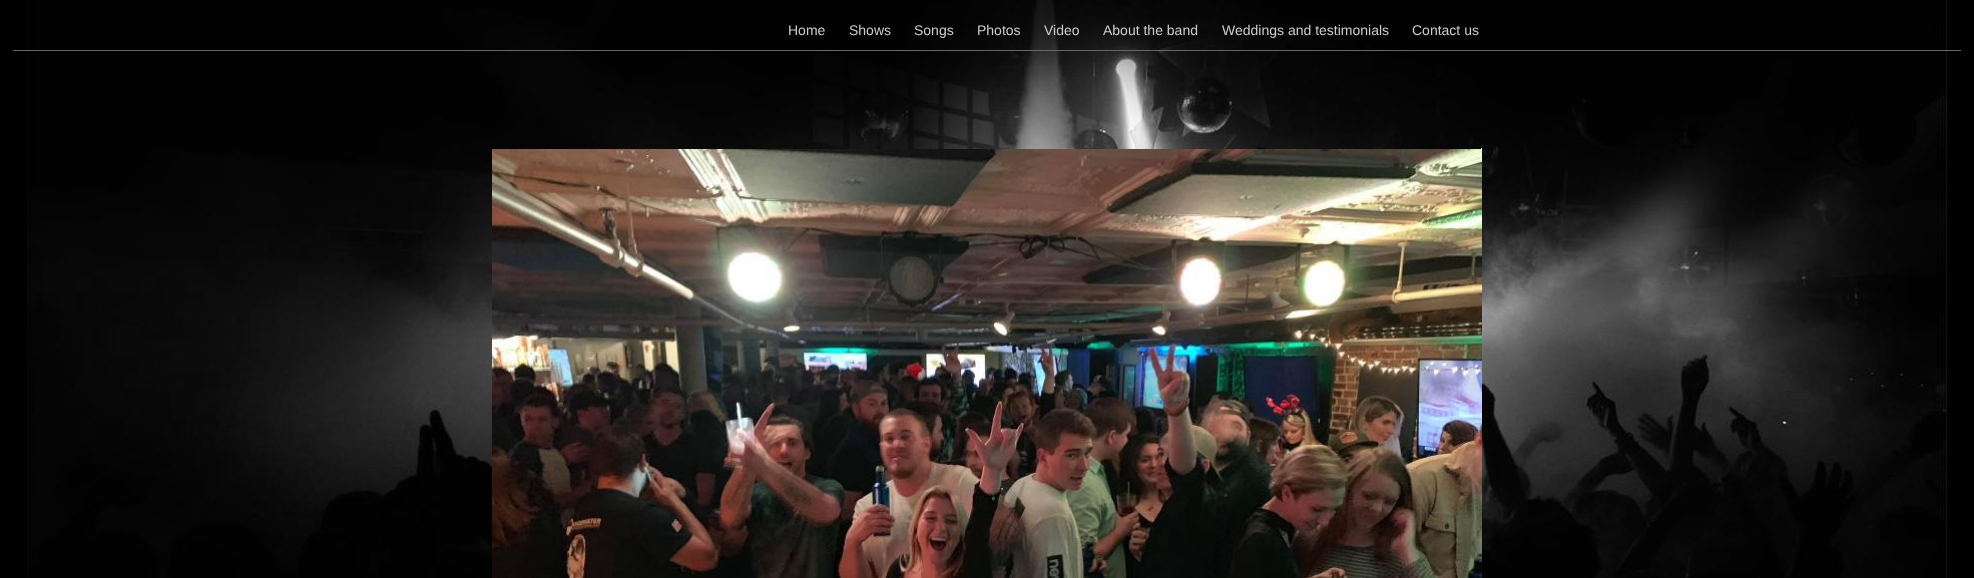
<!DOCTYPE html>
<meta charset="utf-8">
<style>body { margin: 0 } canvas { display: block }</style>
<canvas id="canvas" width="1974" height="578"></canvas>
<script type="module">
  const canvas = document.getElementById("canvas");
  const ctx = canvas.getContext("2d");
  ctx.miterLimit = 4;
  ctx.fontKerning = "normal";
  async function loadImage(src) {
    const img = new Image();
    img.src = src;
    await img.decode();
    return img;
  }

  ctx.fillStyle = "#000000";
  ctx.fillRect(0, 0, 1974, 578);
  ctx.drawImage(await loadImage("img1.png"), 27, 0, 1920, 578);
  ctx.fillStyle = "#666666";
  ctx.fillRect(13, 50, 1948, 1);
  ctx.font = "14px Liberation Sans";
  ctx.fillStyle = "#cccccc";
  ctx.fillText("Home", 788, 35);
  ctx.fillText("Shows", 849, 35);
  ctx.fillText("Songs", 914, 35);
  ctx.fillText("Photos", 977, 35);
  ctx.fillText("Video", 1044, 35);
  ctx.fillText("About the band", 1103, 35);
  ctx.fillText("Weddings and testimonials", 1222, 35);
  ctx.fillText("Contact us", 1412, 35);
  ctx.fillStyle = "#fdf4f4";
  ctx.fillRect(1481, 148, 1, 1);
  ctx.drawImage(await loadImage("img2.png"), 492, 149, 990, 429);
</script>
